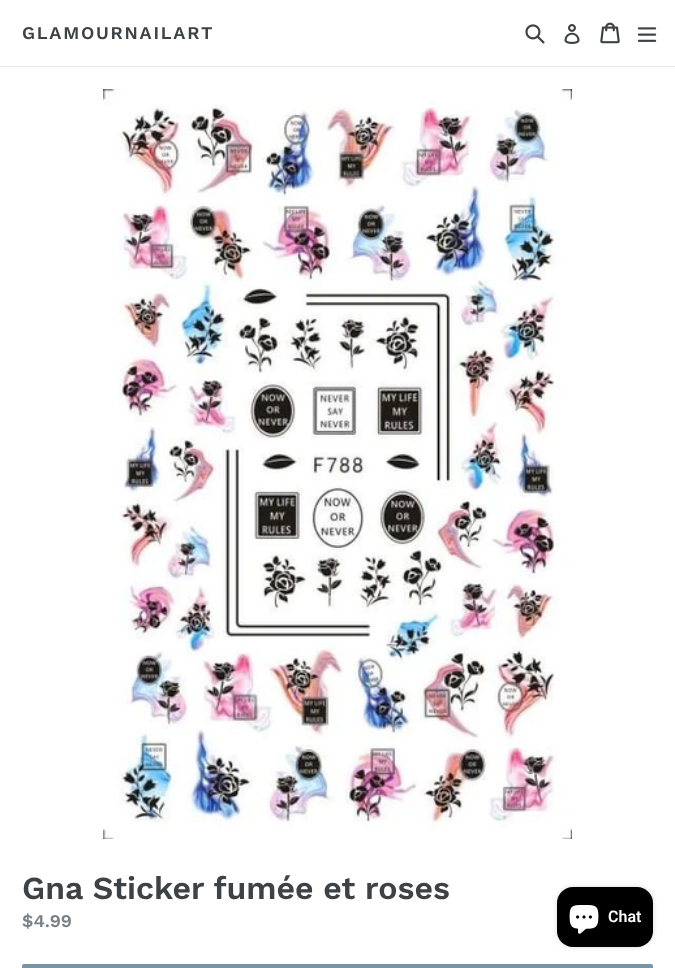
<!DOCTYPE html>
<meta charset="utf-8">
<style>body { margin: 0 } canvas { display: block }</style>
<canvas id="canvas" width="675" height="968"></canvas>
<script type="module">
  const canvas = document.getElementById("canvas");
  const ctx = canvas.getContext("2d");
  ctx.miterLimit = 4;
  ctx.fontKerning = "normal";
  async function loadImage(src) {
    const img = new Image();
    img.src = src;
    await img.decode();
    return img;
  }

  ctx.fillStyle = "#ffffff";
  ctx.fillRect(0, 0, 675, 968);
  ctx.fillStyle = "#e8e9eb";
  ctx.fillRect(0, 66, 675, 1);
  ctx.letterSpacing = "1.75px";
  ctx.font = "600 18px Work Sans";
  ctx.fillStyle = "#3d4246";
  ctx.fillText("GLAMOURNAILART", 22, 39);
  ctx.drawImage(await loadImage("img1.png"), 525, 24, 20, 20);
  ctx.drawImage(await loadImage("img2.png"), 564, 24, 16, 20);
  ctx.drawImage(await loadImage("img3.png"), 600, 22, 20, 22);
  ctx.drawImage(await loadImage("img4.png"), 637, 27, 20, 15);
  ctx.drawImage(await loadImage("img5.png"), 103, 89, 469, 750);
  ctx.letterSpacing = "0px";
  ctx.font = "600 32px Work Sans";
  ctx.fillText("Gna Sticker fumée et roses", 22, 899);
  ctx.font = "600 18px Work Sans";
  ctx.fillStyle = "#788188";
  ctx.fillText("$4.99", 22, 927);
  ctx.fillStyle = "#7796a8";
  ctx.beginPath();
  ctx.roundRect(22, 964, 631, 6, 2);
  ctx.fill();
  ctx.fillStyle = "rgba(0, 0, 0, 0.15)";
  ctx.filter = "blur(2.5px)";
  ctx.beginPath();
  ctx.roundRect(557, 887, 96, 60, 16);
  ctx.fill();
  ctx.filter = "none";
  ctx.fillStyle = "#000000";
  ctx.beginPath();
  ctx.roundRect(557, 887, 96, 60, 16);
  ctx.fill();
  ctx.drawImage(await loadImage("img6.png"), 569, 905, 30, 29);
  ctx.font = "600 16px Roboto";
  ctx.fillStyle = "#ffffff";
  ctx.fillText("Chat", 608, 922);
</script>
